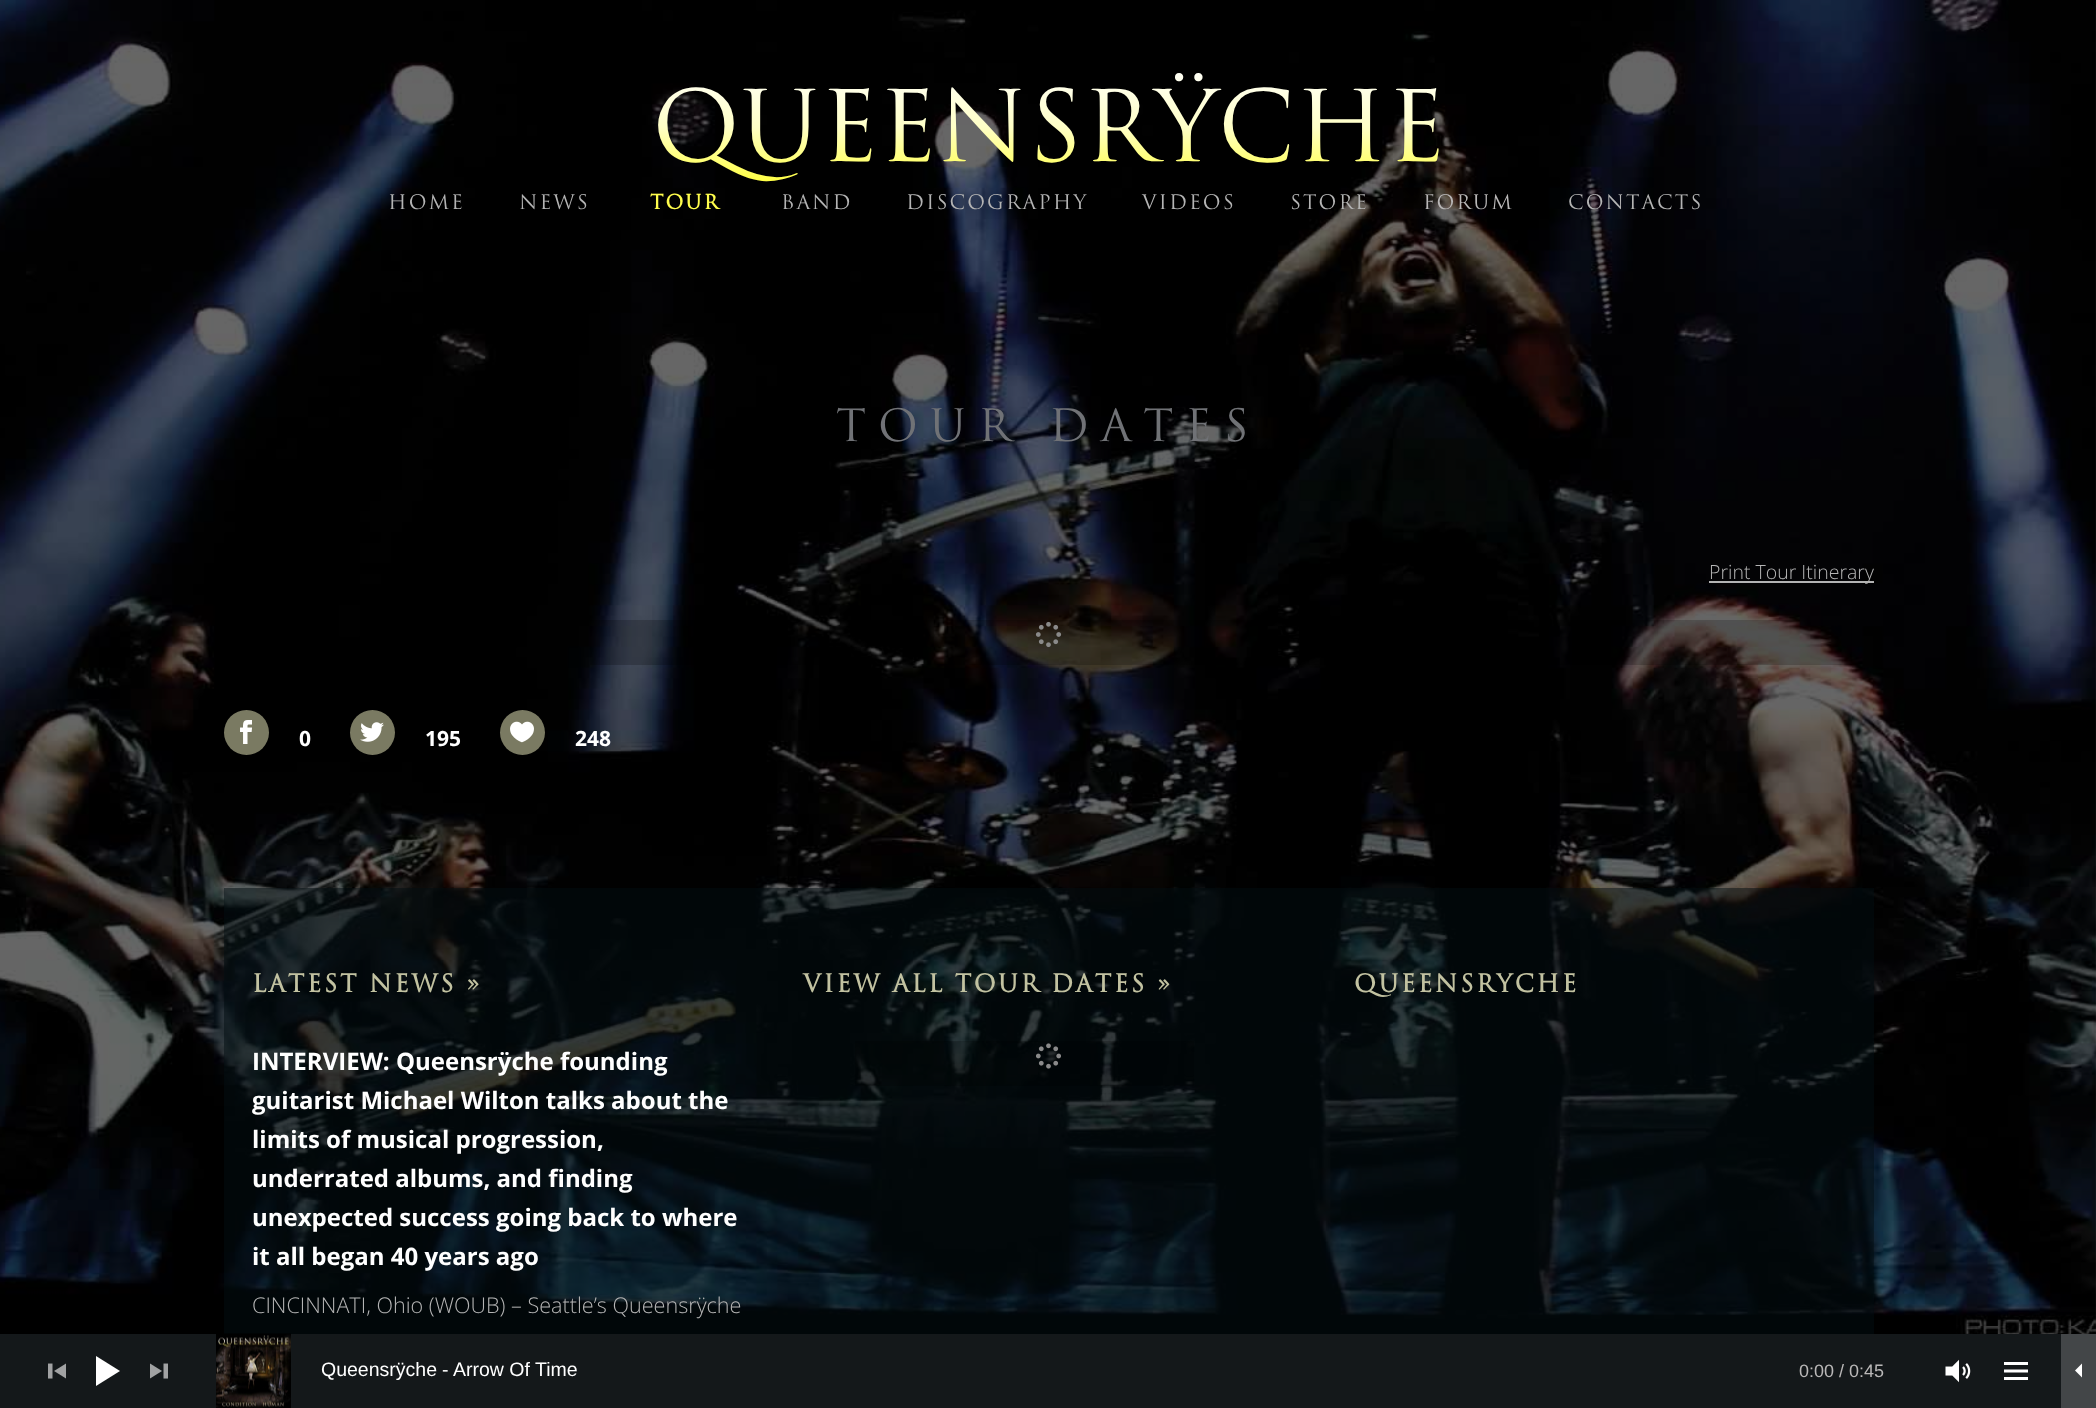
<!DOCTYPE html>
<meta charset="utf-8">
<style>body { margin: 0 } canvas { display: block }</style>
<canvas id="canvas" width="2096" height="1408"></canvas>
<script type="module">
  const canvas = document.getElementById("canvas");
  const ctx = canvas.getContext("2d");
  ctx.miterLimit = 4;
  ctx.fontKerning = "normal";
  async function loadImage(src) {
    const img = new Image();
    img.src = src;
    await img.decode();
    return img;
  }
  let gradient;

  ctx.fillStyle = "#ffffff";
  ctx.fillRect(0, 0, 2096, 1408);
  ctx.drawImage(await loadImage("img1.png"), 0, 0, 2096, 1334);
  ctx.font = "96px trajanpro";
  gradient = ctx.createLinearGradient(1049, 60, 1049, 194);
  gradient.addColorStop(0, "#ffffff");
  gradient.addColorStop(0.5, "#ffffc7");
  gradient.addColorStop(1, "#ffff27");
  ctx.fillStyle = gradient;
  ctx.fillText("QUEENSRŸCHE", 652, 161);
  ctx.letterSpacing = "2px";
  ctx.font = "19.5px trajanpro";
  ctx.fillStyle = "#b4b4b4";
  ctx.fillText("HOME", 388, 209);
  ctx.fillText("NEWS", 519, 209);
  ctx.font = "bold 19.5px trajanpro";
  ctx.fillStyle = "#fffd4c";
  ctx.fillText("TOUR", 650, 209);
  ctx.font = "19.5px trajanpro";
  ctx.fillStyle = "#b4b4b4";
  ctx.fillText("BAND", 781, 209);
  ctx.fillText("DISCOGRAPHY", 906, 209);
  ctx.fillText("VIDEOS", 1142, 209);
  ctx.fillText("STORE", 1290, 209);
  ctx.fillStyle = "#bab8b8";
  ctx.fillText("FORUM", 1423, 209);
  ctx.fillStyle = "#b4b4b4";
  ctx.fillText("CONTACTS", 1568, 209);
  ctx.letterSpacing = "12px";
  ctx.font = "43.5px trajanpro";
  ctx.fillStyle = "#707276";
  ctx.fillText("TOUR DATES", 836, 441);
  ctx.fillStyle = "rgba(255, 255, 255, 0.7)";
  ctx.fillRect(1709, 581, 165, 2);
  ctx.letterSpacing = "0px";
  ctx.font = "300 19.5px Open Sans";
  ctx.fillStyle = "#b4b4b4";
  ctx.fillText("Print Tour Itinerary", 1709, 579);
  ctx.fillStyle = "rgba(0, 0, 0, 0.2)";
  ctx.fillRect(590, 620, 1262, 45);
  ctx.drawImage(await loadImage("img2.png"), 1035, 621, 27, 27);
  ctx.fillStyle = "#7a7a62";
  ctx.beginPath();
  ctx.arc(246.5, 732.5, 22.5, 0, Math.PI * 2);
  ctx.fill();
  ctx.drawImage(await loadImage("img3.png"), 240, 720, 12, 24);
  ctx.font = "bold 21px Open Sans";
  ctx.fillStyle = "#ffffff";
  ctx.fillText("0", 299, 746);
  ctx.fillStyle = "#7a7a62";
  ctx.beginPath();
  ctx.arc(372.5, 732.5, 22.5, 0, Math.PI * 2);
  ctx.fill();
  ctx.drawImage(await loadImage("img4.png"), 360, 722, 24, 20);
  ctx.fillStyle = "#ffffff";
  ctx.fillText("195", 425, 746);
  ctx.fillStyle = "#7a7a62";
  ctx.beginPath();
  ctx.arc(522.5, 732.5, 22.5, 0, Math.PI * 2);
  ctx.fill();
  ctx.drawImage(await loadImage("img5.png"), 510, 721, 24, 22);
  ctx.fillStyle = "#ffffff";
  ctx.fillText("248", 575, 746);
  ctx.fillStyle = "rgba(2, 13, 17, 0.5)";
  ctx.fillRect(224, 888, 1650, 446);
  ctx.letterSpacing = "2.4px";
  ctx.font = "bold 24px trajanpro";
  ctx.fillStyle = "#c2c2a1";
  ctx.fillText("LATEST NEWS »", 252, 992);
  ctx.letterSpacing = "0px";
  ctx.font = "bold 24px Open Sans";
  ctx.fillStyle = "#ffffff";
  ctx.fillText("INTERVIEW: Queensrÿche founding", 252, 1070);
  ctx.fillText("guitarist Michael Wilton talks about the", 252, 1109);
  ctx.fillText("limits of musical progression,", 252, 1148);
  ctx.fillText("underrated albums, and finding", 252, 1187);
  ctx.fillText("unexpected success going back to where", 252, 1226);
  ctx.fillText("it all began 40 years ago", 252, 1265);
  ctx.font = "300 21.6px Open Sans";
  ctx.fillStyle = "#b4b4b4";
  ctx.fillText("CINCINNATI, Ohio (WOUB) – Seattle’s Queensrÿche", 252, 1313);
  ctx.letterSpacing = "2.4px";
  ctx.font = "bold 24px trajanpro";
  ctx.fillStyle = "#c2c2a1";
  ctx.fillText("VIEW ALL TOUR DATES »", 803, 992);
  ctx.fillStyle = "rgba(0, 0, 0, 0.2)";
  ctx.fillRect(855, 1041, 339, 45);
  ctx.drawImage(await loadImage("img6.png"), 1036, 1043, 25, 26);
  ctx.fillStyle = "#c2c2a1";
  ctx.fillText("QUEENSRYCHE", 1354, 992);
  ctx.fillStyle = "#14181a";
  ctx.fillRect(0, 1334, 2061, 74);
  ctx.drawImage(await loadImage("img7.png"), 216, 1333, 75, 75);
  ctx.letterSpacing = "0px";
  ctx.font = "19.5px Liberation Sans";
  ctx.fillStyle = "#ffffff";
  ctx.fillText("Queensrÿche", 321, 1376);
  ctx.fillText("-", 442, 1376);
  ctx.fillText("Arrow Of Time", 453, 1376);
  ctx.drawImage(await loadImage("img8.png"), 48, 1363, 18, 16);
  ctx.beginPath();
  ctx.moveTo(120, 1371);
  ctx.lineTo(96, 1386);
  ctx.lineTo(96, 1356);
  ctx.closePath();
  ctx.fill();
  ctx.drawImage(await loadImage("img9.png"), 150, 1363, 18, 16);
  ctx.font = "18px Liberation Sans";
  ctx.fillStyle = "#bab8b8";
  ctx.fillText("0:00 / 0:45", 1799, 1377);
  ctx.drawImage(await loadImage("img10.png"), 1945, 1359, 26, 24);
  ctx.drawImage(await loadImage("img11.png"), 2004, 1362, 24, 18);
  ctx.fillStyle = "#434648";
  ctx.fillRect(2061, 1334, 35, 74);
  ctx.fillStyle = "#ffffff";
  ctx.beginPath();
  ctx.moveTo(2082, 1377.5);
  ctx.lineTo(2075, 1370.5);
  ctx.lineTo(2082, 1363.5);
  ctx.closePath();
  ctx.fill();
</script>
